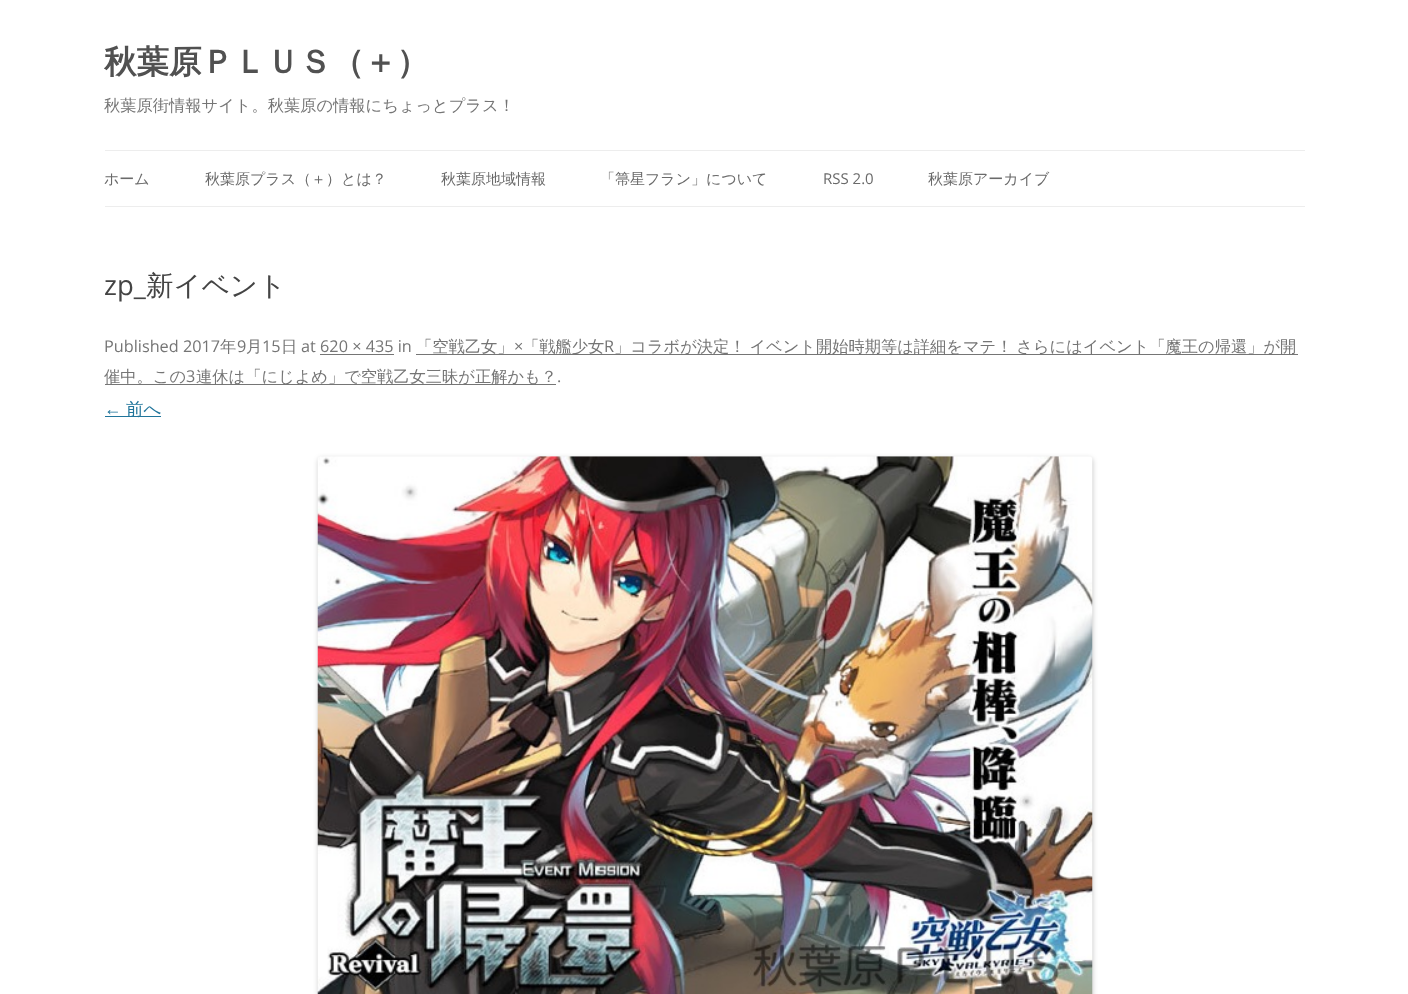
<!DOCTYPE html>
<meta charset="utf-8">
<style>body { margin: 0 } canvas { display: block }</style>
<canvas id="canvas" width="1408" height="994"></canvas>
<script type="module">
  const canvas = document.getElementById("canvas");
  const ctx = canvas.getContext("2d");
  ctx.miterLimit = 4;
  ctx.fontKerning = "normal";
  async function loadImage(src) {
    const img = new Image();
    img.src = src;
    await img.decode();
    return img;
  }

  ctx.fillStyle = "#ffffff";
  ctx.fillRect(0, 0, 1408, 994);
  ctx.font = "bold 32.5px WenQuanYi Zen Hei";
  ctx.fillStyle = "#515151";
  ctx.fillText("秋葉原ＰＬＵＳ（＋）", 104, 73);
  ctx.font = "500 16.25px WenQuanYi Zen Hei";
  ctx.fillStyle = "#757575";
  ctx.fillText("秋葉原街情報サイト。秋葉原の情報にちょっとプラス！", 104, 111);
  ctx.fillStyle = "#ededed";
  ctx.fillRect(105, 150, 1200, 1);
  ctx.fillRect(105, 206, 1200, 1);
  ctx.font = "500 15px WenQuanYi Zen Hei";
  ctx.fillStyle = "#6a6a6a";
  ctx.fillText("ホーム", 104, 184);
  ctx.fillText("秋葉原プラス（＋）とは？", 205, 184);
  ctx.fillText("秋葉原地域情報", 441, 184);
  ctx.fillText("「箒星フラン」について", 600, 184);
  ctx.font = "15px Open Sans";
  ctx.fillText("RSS 2.0", 823, 184);
  ctx.font = "500 15px WenQuanYi Zen Hei";
  ctx.fillText("秋葉原アーカイブ", 928, 184);
  ctx.font = "27.5px Open Sans";
  ctx.fillStyle = "#444444";
  ctx.fillText("zp_", 104, 295);
  ctx.font = "500 27.5px WenQuanYi Zen Hei";
  ctx.fillText("新イベント", 146, 295);
  ctx.font = "16.25px Open Sans";
  ctx.fillStyle = "#757575";
  ctx.fillText("Published 2017", 104, 352);
  ctx.font = "500 16.25px WenQuanYi Zen Hei";
  ctx.fillText("年", 220, 352);
  ctx.font = "16.25px Open Sans";
  ctx.fillText("9", 237, 352);
  ctx.font = "500 16.25px WenQuanYi Zen Hei";
  ctx.fillText("月", 246, 352);
  ctx.font = "16.25px Open Sans";
  ctx.fillText("15", 262, 352);
  ctx.font = "500 16.25px WenQuanYi Zen Hei";
  ctx.fillText("日", 281, 352);
  ctx.font = "16.25px Open Sans";
  ctx.fillText("at 620 × 435 in", 301, 352);
  ctx.fillRect(416, 354, 882, 1);
  ctx.font = "500 16.25px WenQuanYi Zen Hei";
  ctx.fillText("「空戦乙女」", 416, 352);
  ctx.font = "16.25px Open Sans";
  ctx.fillText("×", 514, 352);
  ctx.font = "500 16.25px WenQuanYi Zen Hei";
  ctx.fillText("「戦艦少女", 523, 352);
  ctx.font = "16.25px Open Sans";
  ctx.fillText("R", 604, 352);
  ctx.wordSpacing = "-1px";
  ctx.font = "500 16.25px WenQuanYi Zen Hei";
  ctx.fillText("」コラボが決定！ イベント開始時期等は詳細をマテ！ さらにはイベント「魔王の帰還」が開", 614, 352);
  ctx.fillRect(320, 354, 74, 1);
  ctx.fillRect(105, 384, 451, 1);
  ctx.wordSpacing = "0px";
  ctx.fillText("催中。この", 104, 382);
  ctx.font = "16.25px Open Sans";
  ctx.fillText("3", 186, 382);
  ctx.font = "500 16.25px WenQuanYi Zen Hei";
  ctx.fillText("連休は「にじよめ」で空戦乙女三昧が正解かも？", 196, 382);
  ctx.font = "16.25px Open Sans";
  ctx.fillText(".", 557, 382);
  ctx.font = "17.5px Liberation Sans";
  ctx.fillStyle = "#21759b";
  ctx.fillText("←", 104, 415);
  ctx.fillRect(105, 416, 56, 1);
  ctx.font = "500 17.5px WenQuanYi Zen Hei";
  ctx.fillText("前へ", 126, 415);
  ctx.fillStyle = "rgba(0, 0, 0, 0.2)";
  ctx.filter = "blur(2.5px)";
  ctx.beginPath();
  ctx.roundRect(318, 458, 775, 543, 4);
  ctx.fill();
  ctx.filter = "none";
  ctx.drawImage(await loadImage("img1.png"), 317, 456, 776, 538);
</script>
